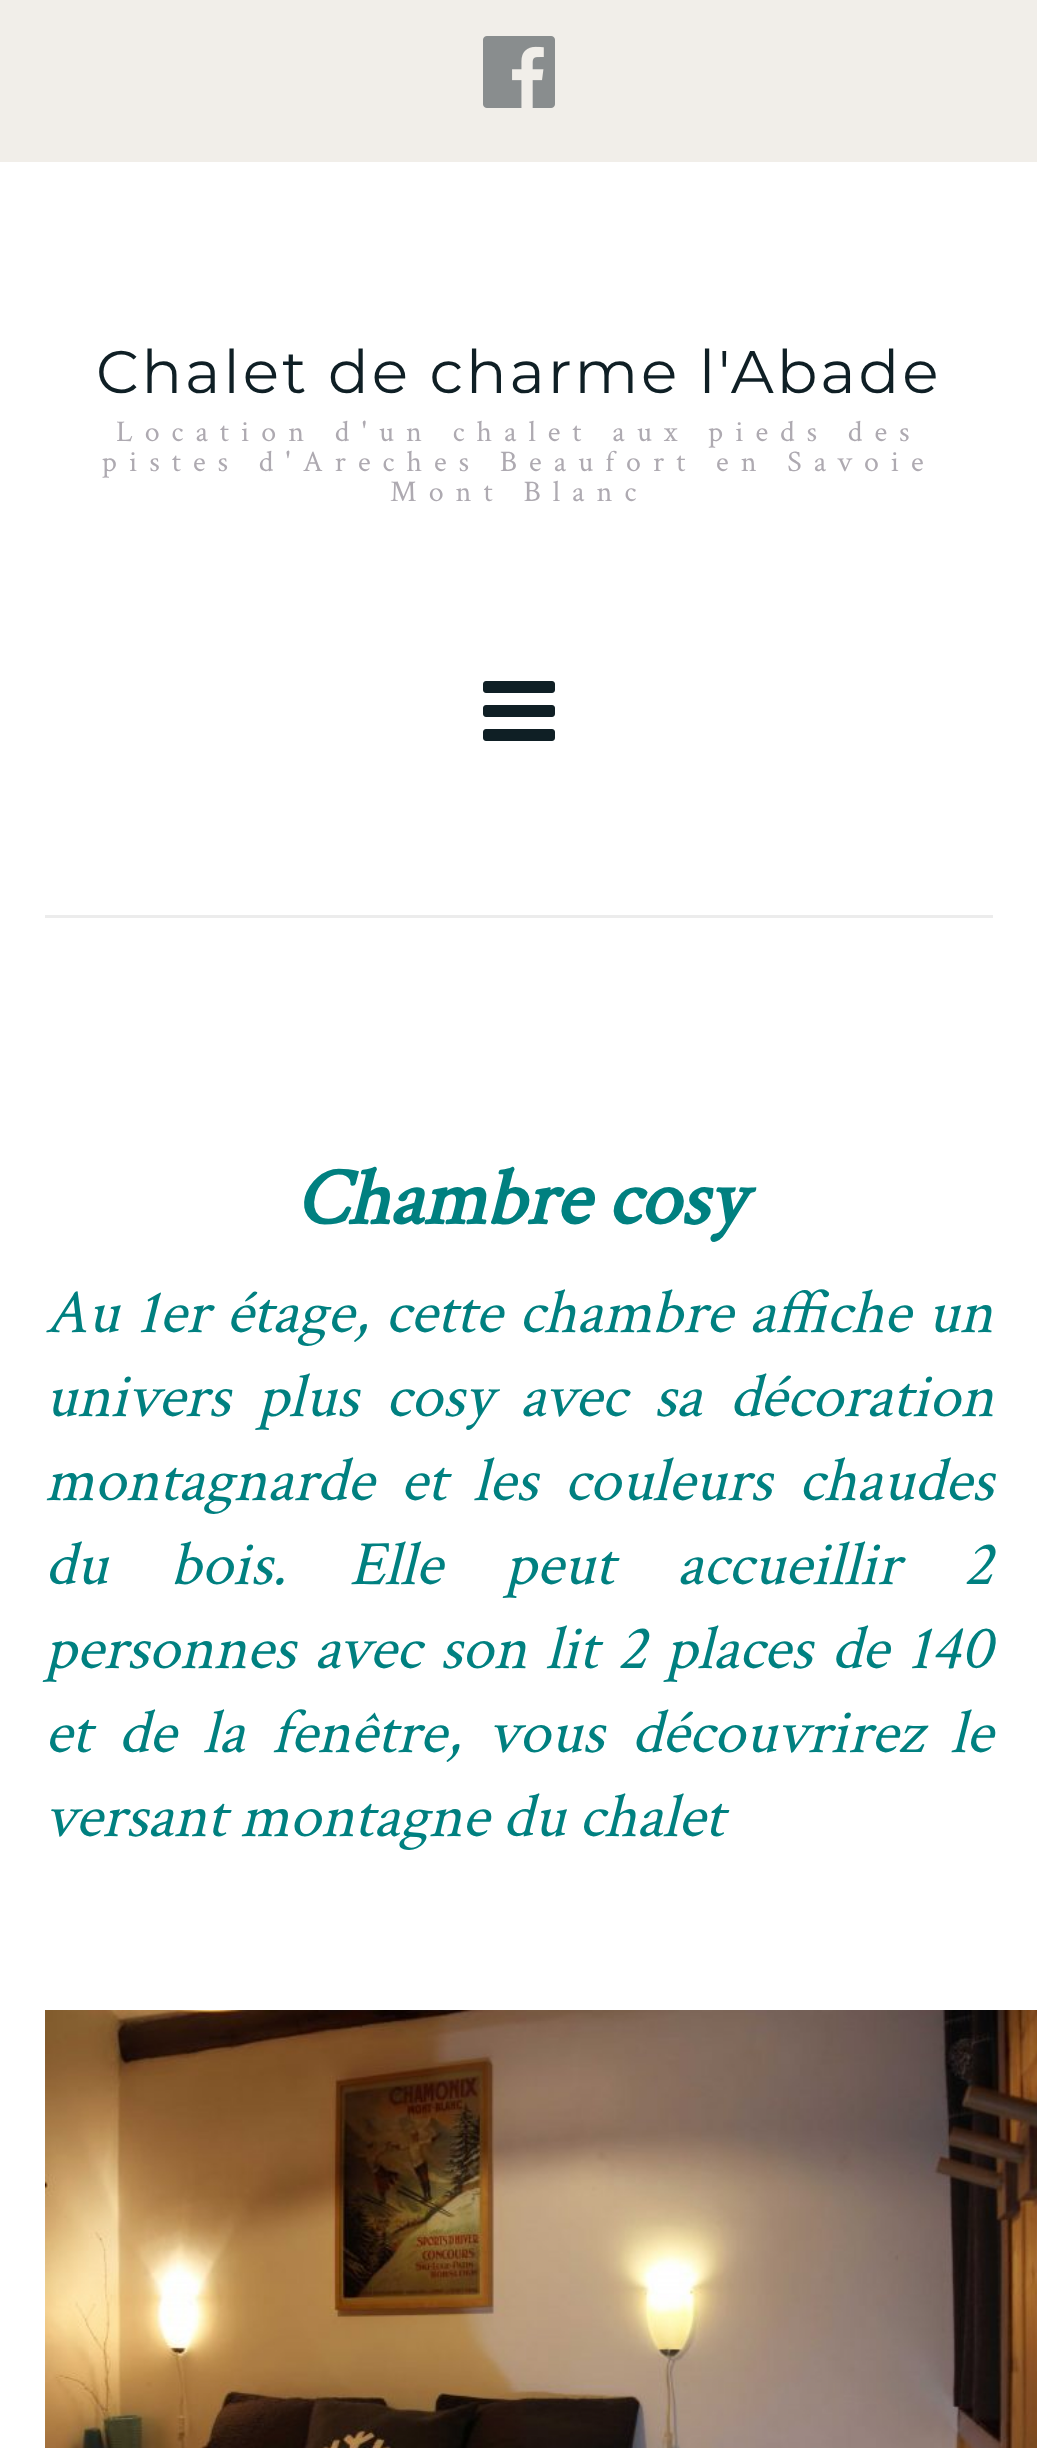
<!DOCTYPE html>
<meta charset="utf-8">
<style>body { margin: 0 } canvas { display: block }</style>
<canvas id="canvas" width="1037" height="2448"></canvas>
<script type="module">
  const canvas = document.getElementById("canvas");
  const ctx = canvas.getContext("2d");
  ctx.miterLimit = 4;
  ctx.fontKerning = "normal";
  async function loadImage(src) {
    const img = new Image();
    img.src = src;
    await img.decode();
    return img;
  }

  ctx.fillStyle = "#f1eee9";
  ctx.fillRect(0, 0, 1037, 2448);
  ctx.drawImage(await loadImage("img1.png"), 483, 36, 72, 72);
  ctx.fillStyle = "#ffffff";
  ctx.fillRect(0, 162, 1037, 2286);
  ctx.letterSpacing = "3px";
  ctx.font = "60px Montserrat";
  ctx.fillStyle = "#0f1f25";
  ctx.fillText("Chalet de charme l'Abade", 96, 393);
  ctx.letterSpacing = "12px";
  ctx.font = "30px Crimson Text";
  ctx.fillStyle = "#aeaab1";
  ctx.fillText("Location d'un chalet aux pieds des", 116, 441);
  ctx.fillText("pistes d'Areches Beaufort en Savoie", 102, 471);
  ctx.fillText("Mont Blanc", 390, 501);
  ctx.drawImage(await loadImage("img2.png"), 483, 681, 72, 60);
  ctx.fillStyle = "#ececec";
  ctx.fillRect(45, 915, 948, 3);
  ctx.letterSpacing = "0px";
  ctx.font = "italic bold 81px Crimson Text";
  ctx.fillStyle = "#008080";
  ctx.fillText("Chambre cosy", 295, 1224);
  ctx.wordSpacing = "3px";
  ctx.font = "italic 63px Crimson Text";
  ctx.fillText("Au 1er étage, cette chambre affiche un", 45, 1332);
  ctx.wordSpacing = "13.5px";
  ctx.fillText("univers plus cosy avec sa décoration", 45, 1416);
  ctx.wordSpacing = "13px";
  ctx.fillText("montagnarde et les couleurs chaudes", 45, 1500);
  ctx.wordSpacing = "49px";
  ctx.fillText("du bois. Elle peut accueillir 2", 45, 1584);
  ctx.wordSpacing = "5px";
  ctx.fillText("personnes avec son lit 2 places de 140", 45, 1668);
  ctx.wordSpacing = "13.5px";
  ctx.fillText("et de la fenêtre, vous découvrirez le", 45, 1752);
  ctx.wordSpacing = "0px";
  ctx.fillText("versant montagne du chalet", 45, 1836);
  ctx.drawImage(await loadImage("img3.png"), 45, 2010, 992, 438);
</script>
